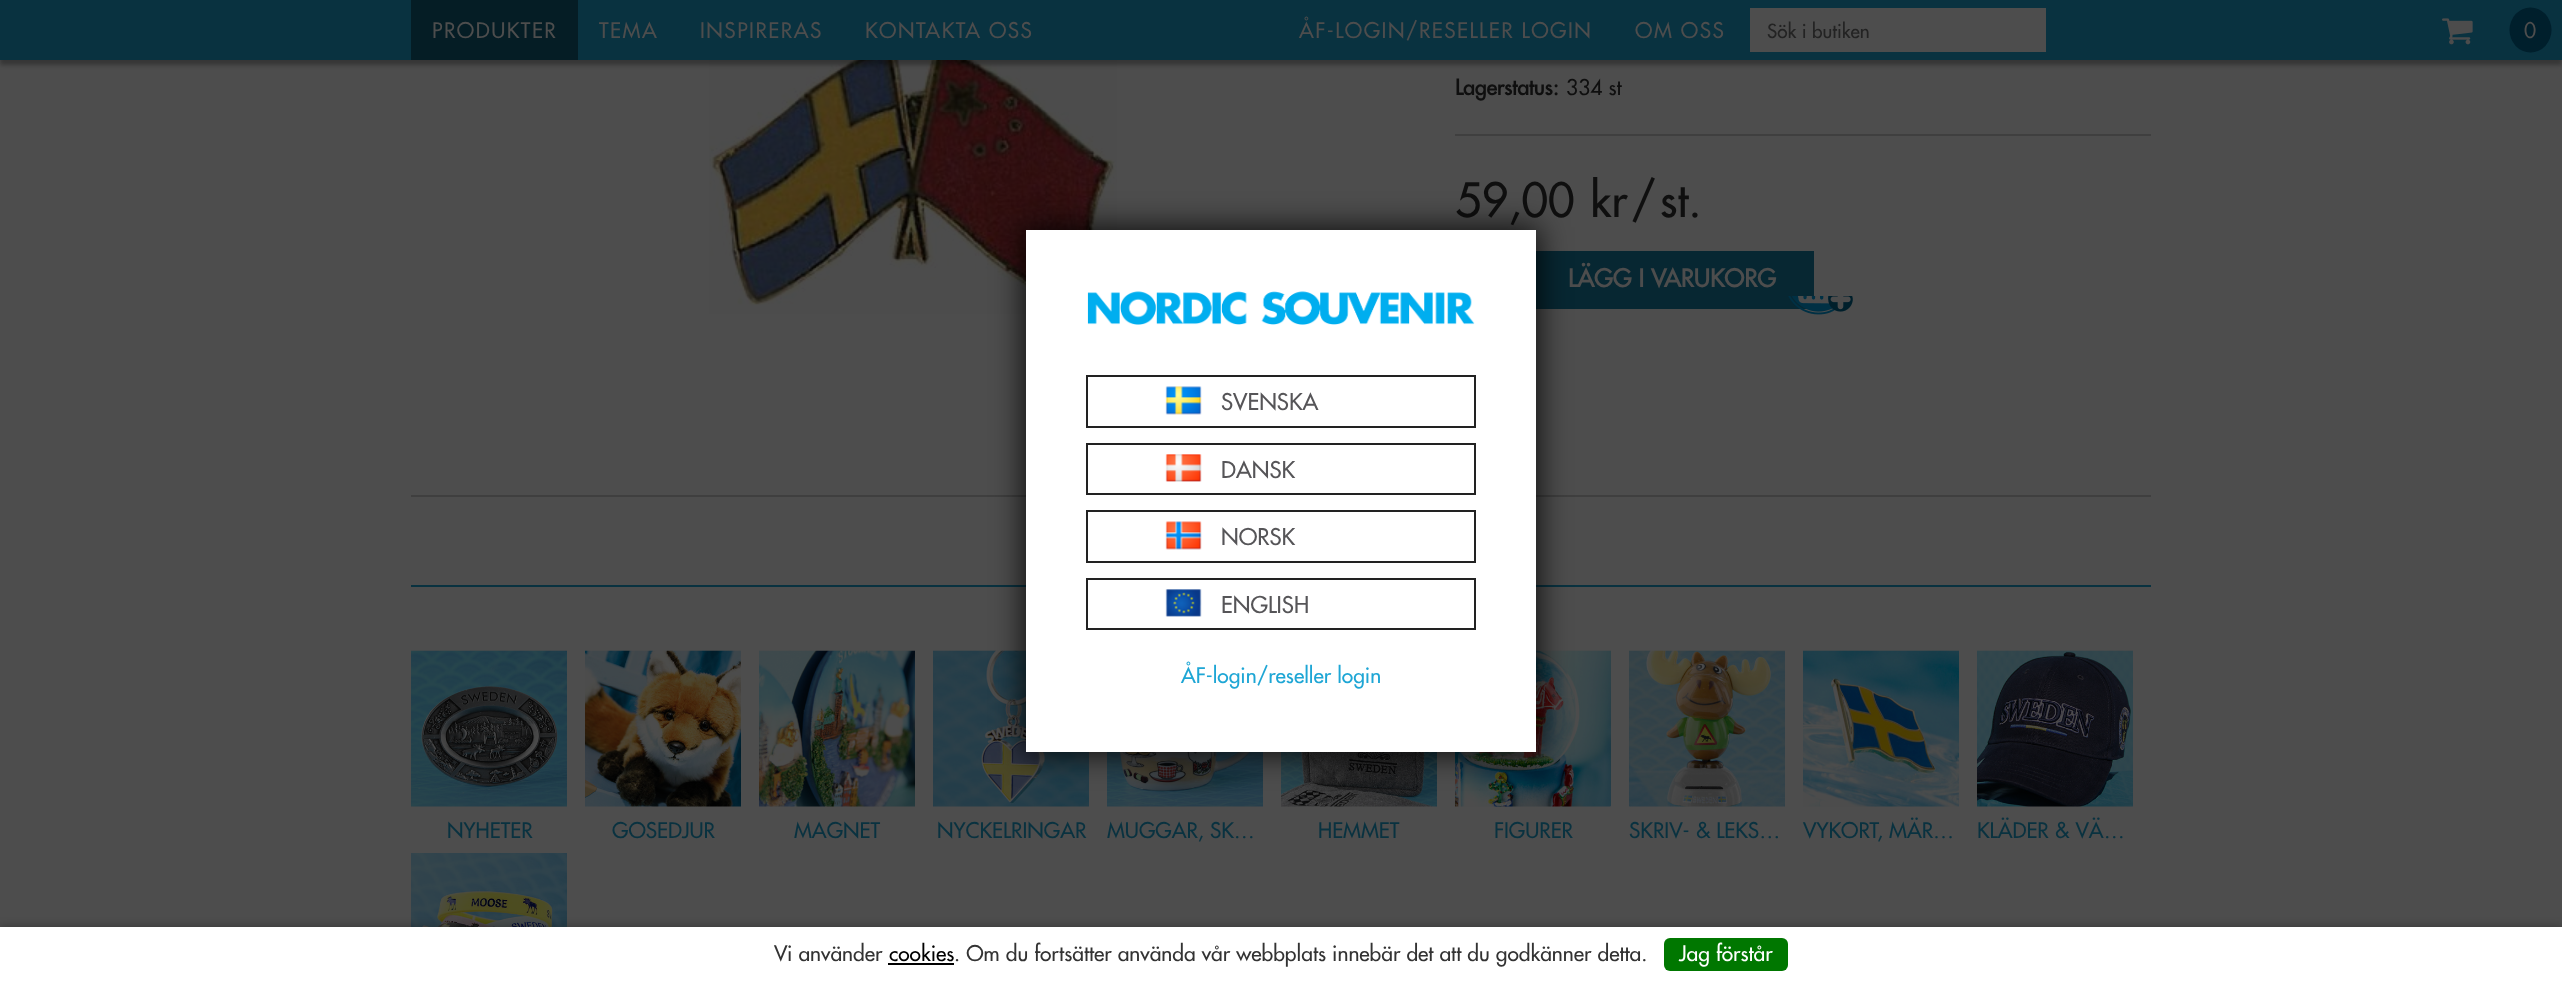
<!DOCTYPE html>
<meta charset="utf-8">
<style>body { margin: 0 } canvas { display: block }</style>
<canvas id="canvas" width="2562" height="981"></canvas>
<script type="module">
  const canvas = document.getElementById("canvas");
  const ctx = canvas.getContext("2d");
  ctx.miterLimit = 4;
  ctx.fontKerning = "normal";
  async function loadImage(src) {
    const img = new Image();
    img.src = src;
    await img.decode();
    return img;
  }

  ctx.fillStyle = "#4d4d4d";
  ctx.fillRect(0, 0, 2562, 981);
  ctx.drawImage(await loadImage("img2.png"), 709, 60, 408, 254);
  ctx.fillStyle = "rgba(0, 0, 0, 0.3)";
  ctx.filter = "blur(2px)";
  ctx.beginPath();
  ctx.rect(0, 5, 2562, 60);
  ctx.fill();
  ctx.filter = "none";
  ctx.fillStyle = "#093240";
  ctx.fillRect(0, 0, 2562, 60);
  ctx.fillStyle = "#051d25";
  ctx.fillRect(411, 0, 167, 60);
  ctx.letterSpacing = "1.5px";
  ctx.font = "21px Futura";
  ctx.fillStyle = "#4d4d4d";
  ctx.fillText("PRODUKTER", 432, 38);
  ctx.fillText("TEMA", 599, 38);
  ctx.fillText("INSPIRERAS", 700, 38);
  ctx.fillText("KONTAKTA OSS", 865, 38);
  ctx.fillText("ÅF-LOGIN/RESELLER LOGIN", 1299, 38);
  ctx.fillText("OM OSS", 1635, 38);
  ctx.fillRect(1750, 8, 296, 44);
  ctx.letterSpacing = "0px";
  ctx.font = "19px Futura";
  ctx.fillStyle = "#232323";
  ctx.fillText("Sök i butiken", 1767, 38);
  ctx.drawImage(await loadImage("img1.png"), 2442, 18, 31, 27);
  ctx.fillStyle = "#001f2c";
  ctx.beginPath();
  ctx.ellipse(2530.5, 30, 21, 22.5, 0, 0, Math.PI * 2);
  ctx.fill();
  ctx.font = "21px Futura";
  ctx.fillStyle = "#4d4d4d";
  ctx.fillText("0", 2524, 38);
  ctx.font = "bold 21px Futura";
  ctx.fillStyle = "#0f0f0f";
  ctx.fillText("Lagerstatus:", 1455, 95);
  ctx.font = "21px Futura";
  ctx.fillText("334 st", 1566, 95);
  ctx.fillStyle = "#3f3f3f";
  ctx.fillRect(1455, 134, 696, 2);
  ctx.font = "46px Futura";
  ctx.fillStyle = "#0f0f0f";
  ctx.fillText("59,00", 1455, 217);
  ctx.fillText("kr", 1590, 217);
  ctx.wordSpacing = "-10px";
  ctx.fillText("/ st.", 1631, 217);
  ctx.fillStyle = "#072732";
  ctx.fillRect(1536, 251, 278, 58);
  ctx.wordSpacing = "0px";
  ctx.font = "bold 24px Futura";
  ctx.fillStyle = "#4d4d4d";
  ctx.fillText("LÄGG I VARUKORG", 1568, 287);
  ctx.drawImage(await loadImage("img3.png"), 1788, 296, 65, 19);
  ctx.fillStyle = "#3f3f3f";
  ctx.fillRect(411, 495, 1740, 2);
  ctx.fillStyle = "#093240";
  ctx.fillRect(411, 585, 615, 2);
  ctx.fillRect(1536, 585, 615, 2);
  ctx.drawImage(await loadImage("img4.png"), 411, 650, 156, 157);
  ctx.font = "21px Futura";
  ctx.fillText("NYHETER", 447, 838);
  ctx.drawImage(await loadImage("img5.png"), 585, 650, 156, 157);
  ctx.fillText("GOSEDJUR", 612, 838);
  ctx.drawImage(await loadImage("img6.png"), 759, 650, 156, 157);
  ctx.fillText("MAGNET", 794, 838);
  ctx.drawImage(await loadImage("img7.png"), 933, 650, 156, 157);
  ctx.fillText("NYCKELRINGAR", 937, 838);
  ctx.drawImage(await loadImage("img8.png"), 1107, 752, 156, 55);
  ctx.fillText("MUGGAR, SK…", 1107, 838);
  ctx.drawImage(await loadImage("img9.png"), 1281, 752, 156, 55);
  ctx.fillText("HEMMET", 1318, 838);
  ctx.drawImage(await loadImage("img10.png"), 1455, 650, 156, 157);
  ctx.fillText("FIGURER", 1494, 838);
  ctx.drawImage(await loadImage("img11.png"), 1629, 650, 156, 157);
  ctx.fillText("SKRIV- & LEKS…", 1629, 838);
  ctx.drawImage(await loadImage("img12.png"), 1803, 650, 156, 157);
  ctx.fillText("VYKORT, MÄR…", 1803, 838);
  ctx.drawImage(await loadImage("img13.png"), 1977, 650, 156, 157);
  ctx.fillText("KLÄDER & VÄ…", 1977, 838);
  ctx.drawImage(await loadImage("img14.png"), 411, 853, 156, 74);
  ctx.fillStyle = "rgba(0, 0, 0, 0.8)";
  ctx.filter = "blur(15px)";
  ctx.beginPath();
  ctx.rect(1023, 227, 516, 528);
  ctx.fill();
  ctx.filter = "none";
  ctx.fillStyle = "#ffffff";
  ctx.fillRect(1026, 230, 510, 522);
  ctx.drawImage(await loadImage("img15.png"), 1087, 291, 388, 34);
  ctx.strokeStyle = "#222222";
  ctx.lineWidth = 2;
  ctx.strokeRect(1087, 376, 388, 51);
  ctx.drawImage(await loadImage("img16.png"), 1165, 386, 37, 29);
  ctx.font = "22.5px Futura";
  ctx.fillStyle = "#565558";
  ctx.fillText("SVENSKA", 1221, 410);
  ctx.strokeRect(1087, 444, 388, 50);
  ctx.drawImage(await loadImage("img17.png"), 1165, 454, 37, 28);
  ctx.fillText("DANSK", 1221, 478);
  ctx.strokeRect(1087, 511, 388, 51);
  ctx.drawImage(await loadImage("img18.png"), 1165, 521, 37, 29);
  ctx.fillText("NORSK", 1221, 545);
  ctx.strokeRect(1087, 579, 388, 50);
  ctx.drawImage(await loadImage("img19.png"), 1165, 589, 37, 28);
  ctx.fillText("ENGLISH", 1221, 613);
  ctx.font = "21px Futura";
  ctx.fillStyle = "#1ea6d5";
  ctx.fillText("ÅF-login/reseller login", 1181, 683);
  ctx.fillStyle = "rgba(0, 0, 0, 0.3)";
  ctx.filter = "blur(5px)";
  ctx.beginPath();
  ctx.rect(0, 927, 2562, 54);
  ctx.fill();
  ctx.filter = "none";
  ctx.fillStyle = "#ffffff";
  ctx.fillRect(0, 927, 2562, 54);
  ctx.fillStyle = "#333333";
  ctx.fillText("Vi använder", 774, 961);
  ctx.fillStyle = "#000000";
  ctx.fillText("cookies", 889, 961);
  ctx.fillRect(888, 963, 66, 2);
  ctx.fillStyle = "#333333";
  ctx.fillText(". Om du fortsätter använda vår webbplats innebär det att du godkänner detta.", 954, 961);
  ctx.fillStyle = "#007700";
  ctx.beginPath();
  ctx.roundRect(1664, 938, 124, 33, 6);
  ctx.fill();
  ctx.fillStyle = "#ffffff";
  ctx.fillText("Jag förstår", 1679, 961);
</script>
